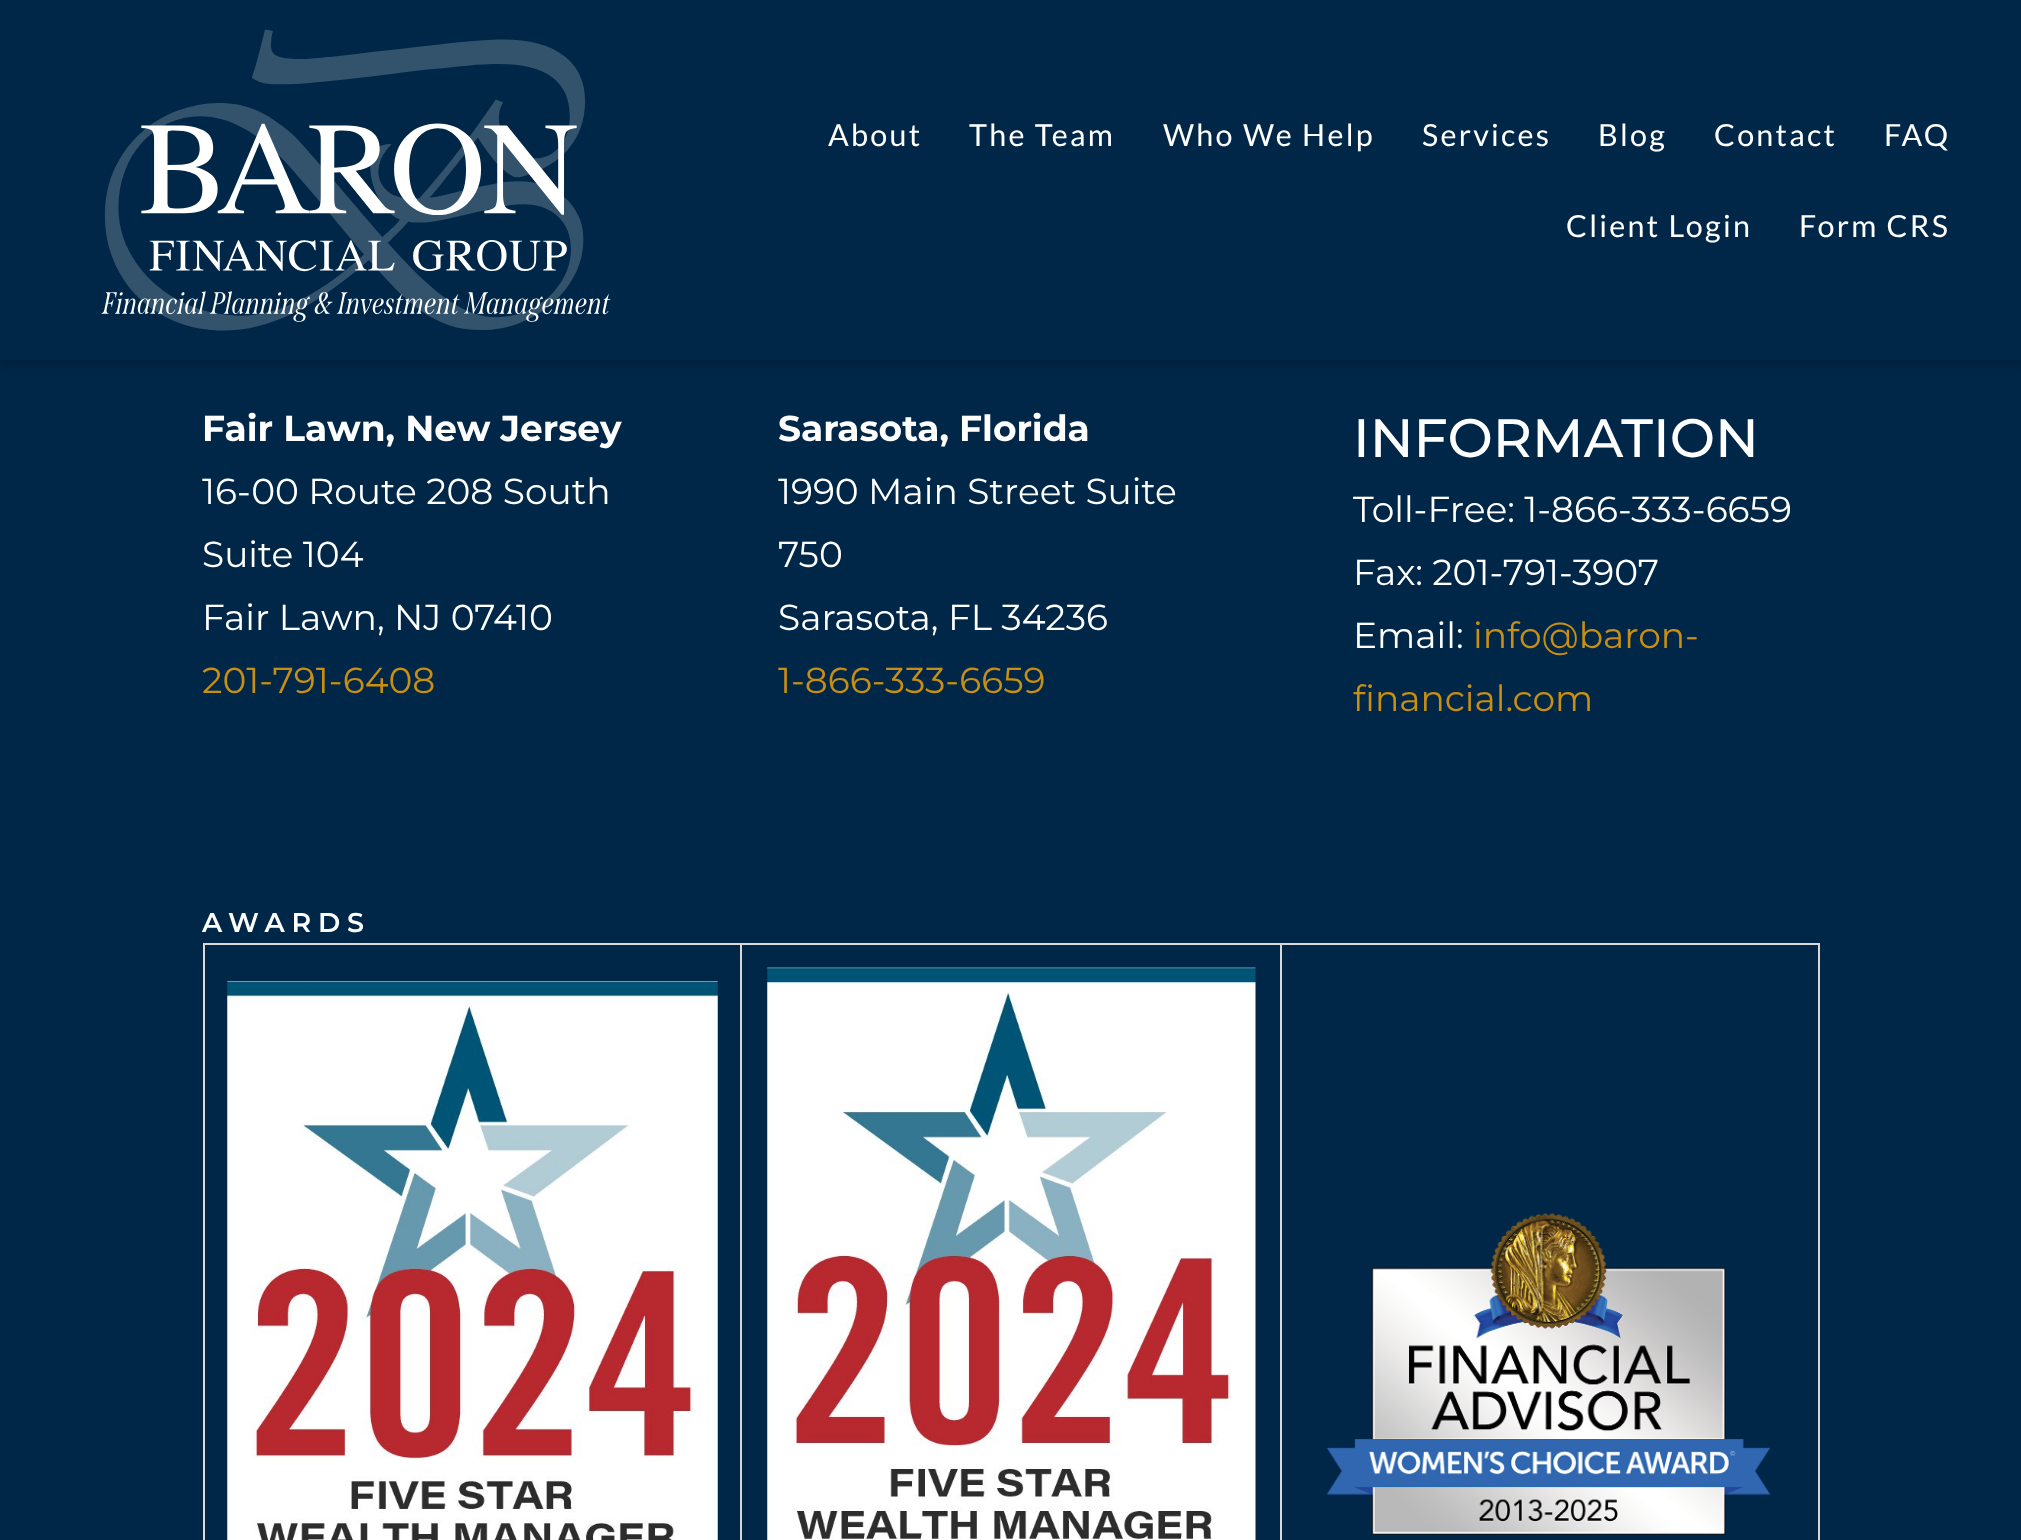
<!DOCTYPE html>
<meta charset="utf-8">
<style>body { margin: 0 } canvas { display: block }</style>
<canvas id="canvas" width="2021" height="1540"></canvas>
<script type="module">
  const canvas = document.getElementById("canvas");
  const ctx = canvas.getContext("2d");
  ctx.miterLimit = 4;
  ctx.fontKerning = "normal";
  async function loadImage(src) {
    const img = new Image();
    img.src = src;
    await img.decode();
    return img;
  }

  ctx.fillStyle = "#002748";
  ctx.fillRect(0, 0, 2021, 1540);
  ctx.fillStyle = "rgba(0, 0, 0, 0.2)";
  ctx.filter = "blur(4.5px)";
  ctx.beginPath();
  ctx.rect(0, 5, 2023, 360);
  ctx.fill();
  ctx.filter = "none";
  ctx.fillStyle = "#002748";
  ctx.fillRect(0, 1, 2021, 359);
  ctx.drawImage(await loadImage("img1.png"), 101, 29, 510, 302);
  ctx.letterSpacing = "2.25px";
  ctx.font = "30.5px Lato";
  ctx.fillStyle = "#ffffff";
  ctx.fillText("About", 828, 146);
  ctx.fillText("The Team", 969, 146);
  ctx.fillText("Who We Help", 1163, 146);
  ctx.fillText("Services", 1422, 146);
  ctx.fillText("Blog", 1598, 146);
  ctx.fillText("Contact", 1714, 146);
  ctx.fillText("FAQ", 1884, 146);
  ctx.fillText("Client Login", 1566, 237);
  ctx.fillText("Form CRS", 1799, 237);
  ctx.letterSpacing = "0px";
  ctx.font = "bold 36px Montserrat";
  ctx.fillText("Fair Lawn, New Jersey", 202, 441);
  ctx.font = "36px Montserrat";
  ctx.fillText("16-00 Route 208 South", 202, 504);
  ctx.fillText("Suite 104", 202, 567);
  ctx.fillText("Fair Lawn, NJ 07410", 202, 630);
  ctx.fillStyle = "#c98f12";
  ctx.fillText("201-791-6408", 202, 693);
  ctx.font = "bold 36px Montserrat";
  ctx.fillStyle = "#ffffff";
  ctx.fillText("Sarasota, Florida", 778, 441);
  ctx.font = "36px Montserrat";
  ctx.fillText("1990 Main Street Suite", 778, 504);
  ctx.fillText("750", 778, 567);
  ctx.fillText("Sarasota, FL 34236", 778, 630);
  ctx.fillStyle = "#c98f12";
  ctx.fillText("1-866-333-6659", 778, 693);
  ctx.font = "500 54px Montserrat";
  ctx.fillStyle = "#ffffff";
  ctx.fillText("INFORMATION", 1353, 457);
  ctx.font = "36px Montserrat";
  ctx.fillText("Toll-Free: 1-866-333-6659", 1353, 522);
  ctx.fillText("Fax: 201-791-3907", 1353, 585);
  ctx.fillText("Email:", 1353, 648);
  ctx.fillStyle = "#c98f12";
  ctx.fillText("info@baron-", 1473, 648);
  ctx.fillText("financial.com", 1353, 711);
  ctx.letterSpacing = "6.75px";
  ctx.font = "600 27px Montserrat";
  ctx.fillStyle = "#ffffff";
  ctx.fillText("AWARDS", 202, 932);
  ctx.fillStyle = "#d9d9d9";
  ctx.fillRect(1280, 943, 540, 2);
  ctx.fillRect(1280, 943, 2, 597);
  ctx.fillRect(740, 943, 543, 2);
  ctx.fillRect(740, 943, 2, 597);
  ctx.fillRect(203, 943, 540, 2);
  ctx.fillRect(203, 943, 2, 597);
  ctx.drawImage(await loadImage("img2.png"), 227, 981, 491, 559);
  ctx.drawImage(await loadImage("img3.png"), 767, 967, 489, 573);
  ctx.fillRect(1818, 943, 2, 597);
  ctx.drawImage(await loadImage("img4.png"), 1326, 1212, 445, 323);
</script>
